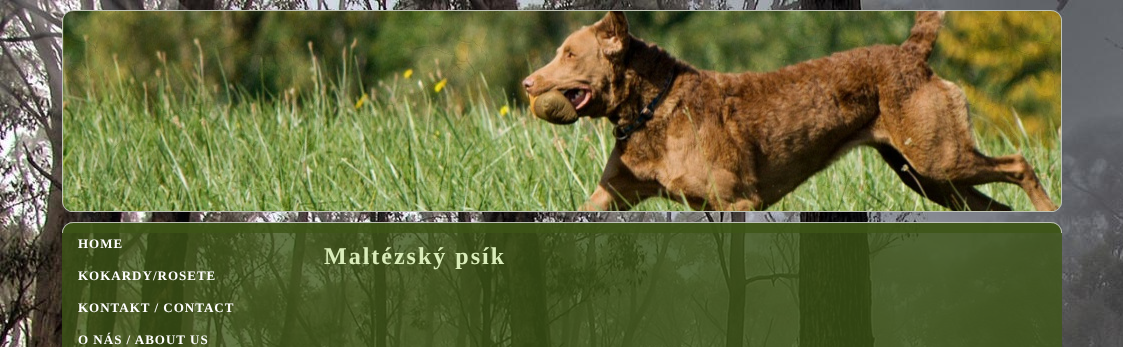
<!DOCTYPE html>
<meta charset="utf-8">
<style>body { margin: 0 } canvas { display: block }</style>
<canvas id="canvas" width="1123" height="347"></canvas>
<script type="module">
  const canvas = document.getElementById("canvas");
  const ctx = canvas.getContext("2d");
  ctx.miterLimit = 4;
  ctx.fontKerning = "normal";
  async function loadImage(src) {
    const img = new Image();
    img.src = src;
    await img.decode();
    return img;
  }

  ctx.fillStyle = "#ffffff";
  ctx.fillRect(0, 0, 1123, 347);
  ctx.drawImage(await loadImage("img1.png"), 0, 0, 1123, 347);
  ctx.drawImage(await loadImage("img2.png"), 0, 0, 256, 283);
  ctx.drawImage(await loadImage("img3.png"), 62, 10, 1000, 202);
  ctx.drawImage(await loadImage("img4.png"), 73, 11, 978, 200);
  ctx.drawImage(await loadImage("img5.png"), 62, 222, 989, 11);
  ctx.drawImage(await loadImage("img6.png"), 62, 222, 989, 11);
  ctx.drawImage(await loadImage("img7.png"), 1051, 222, 11, 11);
  ctx.drawImage(await loadImage("img8.png"), 1051, 222, 11, 11);
  ctx.fillStyle = "rgba(61, 85, 22, 0.8)";
  ctx.fillRect(62, 233, 989, 114);
  ctx.fillRect(1051, 233, 11, 114);
  ctx.letterSpacing = "1px";
  ctx.font = "bold 13px Liberation Serif";
  ctx.fillStyle = "#ffffff";
  ctx.fillText("HOME", 78, 248);
  ctx.fillText("KOKARDY/ROSETE", 78, 280);
  ctx.fillText("KONTAKT / CONTACT", 78, 312);
  ctx.fillText("O NÁS / ABOUT US", 78, 344);
  ctx.letterSpacing = "2px";
  ctx.font = "bold 24px Liberation Serif";
  ctx.fillStyle = "#daedba";
  ctx.fillText("Maltézský psík", 324, 264);
</script>
